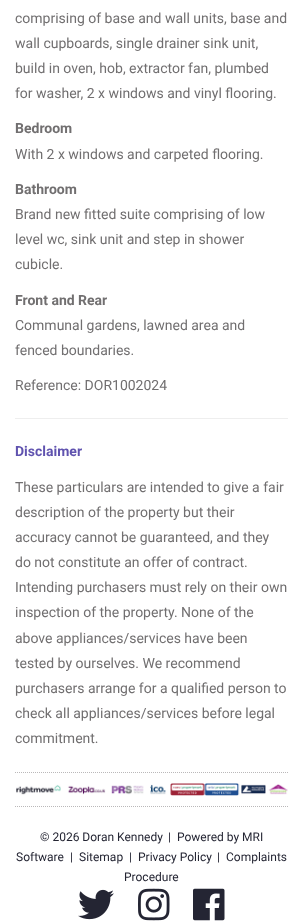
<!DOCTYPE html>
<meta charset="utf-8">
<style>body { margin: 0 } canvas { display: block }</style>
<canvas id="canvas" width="303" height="924"></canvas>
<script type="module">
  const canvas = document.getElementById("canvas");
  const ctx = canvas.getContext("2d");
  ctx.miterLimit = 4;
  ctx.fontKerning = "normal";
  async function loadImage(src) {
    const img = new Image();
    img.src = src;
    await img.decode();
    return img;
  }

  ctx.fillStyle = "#ffffff";
  ctx.fillRect(0, 0, 303, 924);
  ctx.font = "14px Roboto";
  ctx.fillStyle = "#716f70";
  ctx.fillText("comprising of base and wall units, base and", 15, 23);
  ctx.fillText("wall cupboards, single drainer sink unit,", 15, 48);
  ctx.fillText("build in oven, hob, extractor fan, plumbed", 15, 73);
  ctx.fillText("for washer, 2 x windows and vinyl flooring.", 15, 98);
  ctx.font = "bold 14px Roboto";
  ctx.fillText("Bedroom", 15, 133);
  ctx.font = "14px Roboto";
  ctx.fillText("With 2 x windows and carpeted flooring.", 15, 159);
  ctx.font = "bold 14px Roboto";
  ctx.fillText("Bathroom", 15, 194);
  ctx.font = "14px Roboto";
  ctx.fillText("Brand new fitted suite comprising of low", 15, 219);
  ctx.fillText("level wc, sink unit and step in shower", 15, 244);
  ctx.fillText("cubicle.", 15, 269);
  ctx.font = "bold 14px Roboto";
  ctx.fillText("Front and Rear", 15, 305);
  ctx.font = "14px Roboto";
  ctx.fillText("Communal gardens, lawned area and", 15, 330);
  ctx.fillText("fenced boundaries.", 15, 355);
  ctx.fillText("Reference: DOR1002024", 15, 390);
  ctx.fillStyle = "#eeeeee";
  ctx.fillRect(15, 418, 273, 1);
  ctx.font = "bold 14px Roboto";
  ctx.fillStyle = "#6053af";
  ctx.fillText("Disclaimer", 15, 456);
  ctx.font = "14px Roboto";
  ctx.fillStyle = "#716f70";
  ctx.fillText("These particulars are intended to give a fair", 15, 492);
  ctx.fillText("description of the property but their", 15, 517);
  ctx.fillText("accuracy cannot be guaranteed, and they", 15, 542);
  ctx.fillText("do not constitute an offer of contract.", 15, 567);
  ctx.fillText("Intending purchasers must rely on their own", 15, 592);
  ctx.fillText("inspection of the property. None of the", 15, 617);
  ctx.fillText("above appliances/services have been", 15, 643);
  ctx.fillText("tested by ourselves. We recommend", 15, 668);
  ctx.fillText("purchasers arrange for a qualified person to", 15, 693);
  ctx.fillText("check all appliances/services before legal", 15, 718);
  ctx.fillText("commitment.", 15, 743);
  ctx.beginPath();
  ctx.moveTo(15, 772.5);
  ctx.lineTo(288, 772.5);
  ctx.strokeStyle = "#bab8b9";
  ctx.setLineDash([1, 1]);
  ctx.stroke();
  ctx.beginPath();
  ctx.moveTo(15, 806.5);
  ctx.lineTo(288, 806.5);
  ctx.stroke();
  ctx.drawImage(await loadImage("img1.png"), 16, 783, 272, 13);
  ctx.font = "12px Roboto";
  ctx.fillStyle = "#242533";
  ctx.fillText("© 2026 Doran Kennedy", 40, 841);
  ctx.fillText("|", 168, 841);
  ctx.fillText("Powered by MRI", 177, 841);
  ctx.fillText("Software", 16, 861);
  ctx.fillText("|", 70, 861);
  ctx.fillText("Sitemap", 79, 861);
  ctx.fillText("|", 129, 861);
  ctx.fillText("Privacy Policy", 138, 861);
  ctx.fillText("|", 217, 861);
  ctx.fillText("Complaints", 226, 861);
  ctx.fillText("Procedure", 124, 881);
  ctx.drawImage(await loadImage("img2.png"), 78, 889, 36, 31);
  ctx.drawImage(await loadImage("img3.png"), 138, 888, 32, 33);
  ctx.drawImage(await loadImage("img4.png"), 193, 888, 32, 33);
</script>
